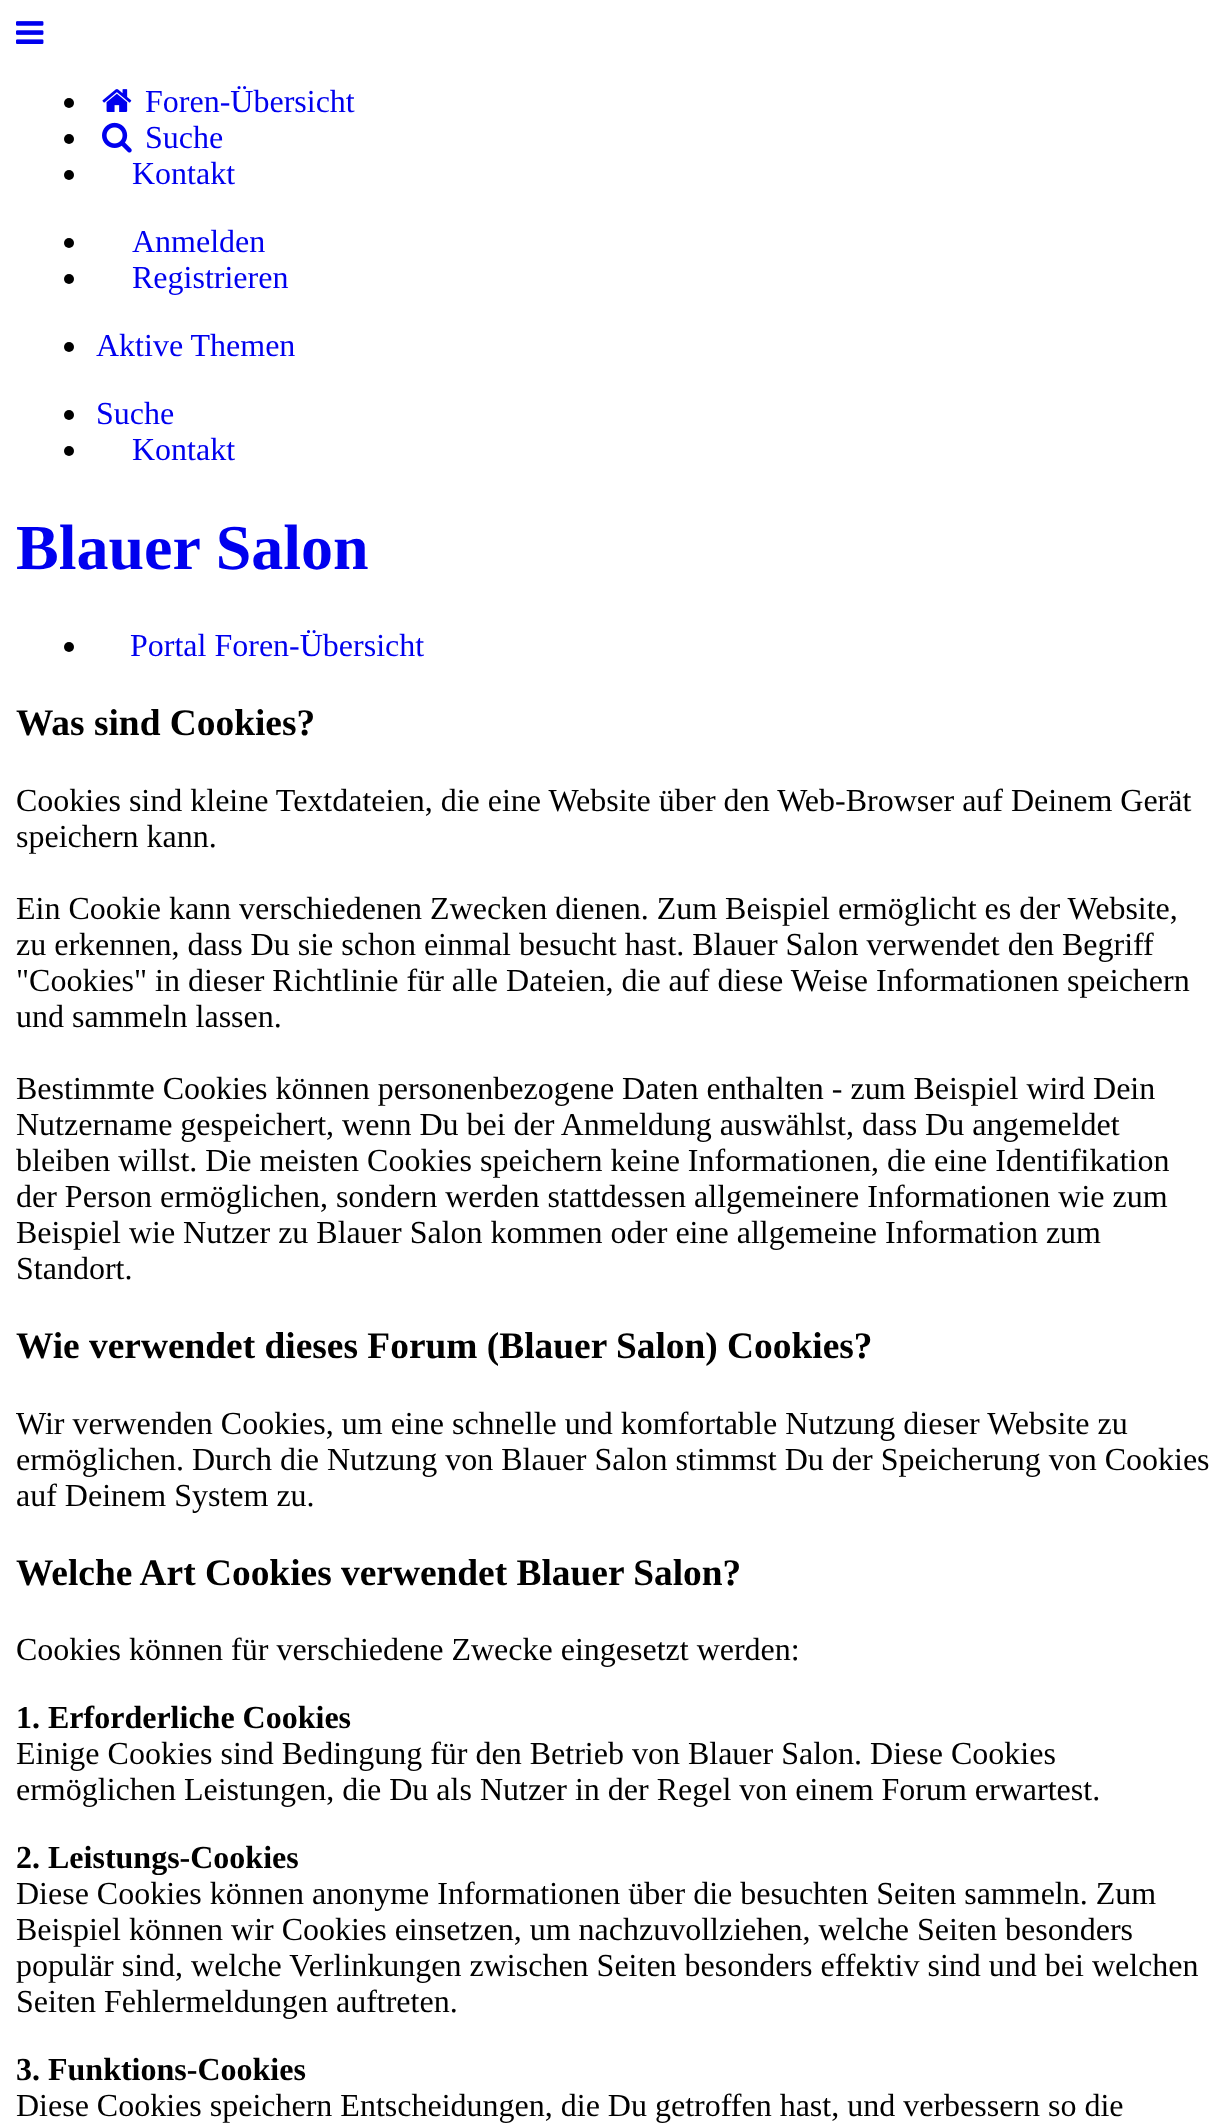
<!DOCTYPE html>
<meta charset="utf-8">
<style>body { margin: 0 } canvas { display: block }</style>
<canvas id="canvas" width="1230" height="2125"></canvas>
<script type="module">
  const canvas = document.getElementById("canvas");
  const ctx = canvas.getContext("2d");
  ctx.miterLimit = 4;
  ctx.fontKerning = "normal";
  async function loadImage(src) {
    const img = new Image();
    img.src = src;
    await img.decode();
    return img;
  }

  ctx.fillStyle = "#ffffff";
  ctx.fillRect(0, 0, 1230, 2125);
  ctx.drawImage(await loadImage("img1.png"), 16, 21, 28, 23);
  ctx.fillStyle = "#000000";
  ctx.beginPath();
  ctx.arc(69, 103, 5, 0, Math.PI * 2);
  ctx.fill();
  ctx.drawImage(await loadImage("img2.png"), 102, 89, 30, 23);
  ctx.font = "32px Liberation Serif";
  ctx.fillStyle = "#0000ee";
  ctx.fillText("Foren-Übersicht", 145, 112);
  ctx.fillStyle = "#000000";
  ctx.beginPath();
  ctx.arc(69, 139, 5, 0, Math.PI * 2);
  ctx.fill();
  ctx.drawImage(await loadImage("img3.png"), 102, 122, 30, 31);
  ctx.fillStyle = "#0000ee";
  ctx.fillText("Suche", 145, 148);
  ctx.fillStyle = "#000000";
  ctx.beginPath();
  ctx.arc(69, 175, 5, 0, Math.PI * 2);
  ctx.fill();
  ctx.fillStyle = "#0000ee";
  ctx.fillText("Kontakt", 132, 184);
  ctx.fillStyle = "#000000";
  ctx.beginPath();
  ctx.arc(69, 243, 5, 0, Math.PI * 2);
  ctx.fill();
  ctx.fillStyle = "#0000ee";
  ctx.fillText("Anmelden", 132, 252);
  ctx.fillStyle = "#000000";
  ctx.beginPath();
  ctx.arc(69, 279, 5, 0, Math.PI * 2);
  ctx.fill();
  ctx.fillStyle = "#0000ee";
  ctx.fillText("Registrieren", 132, 288);
  ctx.fillStyle = "#000000";
  ctx.beginPath();
  ctx.arc(69, 347, 5, 0, Math.PI * 2);
  ctx.fill();
  ctx.fillStyle = "#0000ee";
  ctx.fillText("Aktive Themen", 96, 356);
  ctx.fillStyle = "#000000";
  ctx.beginPath();
  ctx.arc(69, 415, 5, 0, Math.PI * 2);
  ctx.fill();
  ctx.fillStyle = "#0000ee";
  ctx.fillText("Suche", 96, 424);
  ctx.fillStyle = "#000000";
  ctx.beginPath();
  ctx.arc(69, 451, 5, 0, Math.PI * 2);
  ctx.fill();
  ctx.fillStyle = "#0000ee";
  ctx.fillText("Kontakt", 132, 460);
  ctx.font = "bold 64px Liberation Serif";
  ctx.fillText("Blauer Salon", 16, 569);
  ctx.fillStyle = "#000000";
  ctx.beginPath();
  ctx.arc(69, 647, 5, 0, Math.PI * 2);
  ctx.fill();
  ctx.font = "32px Liberation Serif";
  ctx.fillStyle = "#0000ee";
  ctx.fillText("Portal Foren-Übersicht", 130, 656);
  ctx.font = "bold 37.4px Liberation Serif";
  ctx.fillStyle = "#000000";
  ctx.fillText("Was sind Cookies?", 16, 735);
  ctx.font = "32px Liberation Serif";
  ctx.fillText("Cookies sind kleine Textdateien, die eine Website über den Web-Browser auf Deinem Gerät", 16, 811);
  ctx.fillText("speichern kann.", 16, 847);
  ctx.fillText("Ein Cookie kann verschiedenen Zwecken dienen. Zum Beispiel ermöglicht es der Website,", 16, 919);
  ctx.fillText("zu erkennen, dass Du sie schon einmal besucht hast. Blauer Salon verwendet den Begriff", 16, 955);
  ctx.fillText("\"Cookies\" in dieser Richtlinie für alle Dateien, die auf diese Weise Informationen speichern", 16, 991);
  ctx.fillText("und sammeln lassen.", 16, 1027);
  ctx.fillText("Bestimmte Cookies können personenbezogene Daten enthalten - zum Beispiel wird Dein", 16, 1099);
  ctx.fillText("Nutzername gespeichert, wenn Du bei der Anmeldung auswählst, dass Du angemeldet", 16, 1135);
  ctx.fillText("bleiben willst. Die meisten Cookies speichern keine Informationen, die eine Identifikation", 16, 1171);
  ctx.fillText("der Person ermöglichen, sondern werden stattdessen allgemeinere Informationen wie zum", 16, 1207);
  ctx.fillText("Beispiel wie Nutzer zu Blauer Salon kommen oder eine allgemeine Information zum", 16, 1243);
  ctx.fillText("Standort.", 16, 1279);
  ctx.font = "bold 37.4px Liberation Serif";
  ctx.fillText("Wie verwendet dieses Forum (Blauer Salon) Cookies?", 16, 1358);
  ctx.font = "32px Liberation Serif";
  ctx.fillText("Wir verwenden Cookies, um eine schnelle und komfortable Nutzung dieser Website zu", 16, 1434);
  ctx.fillText("ermöglichen. Durch die Nutzung von Blauer Salon stimmst Du der Speicherung von Cookies", 16, 1470);
  ctx.fillText("auf Deinem System zu.", 16, 1506);
  ctx.font = "bold 37.4px Liberation Serif";
  ctx.fillText("Welche Art Cookies verwendet Blauer Salon?", 16, 1585);
  ctx.font = "32px Liberation Serif";
  ctx.fillText("Cookies können für verschiedene Zwecke eingesetzt werden:", 16, 1660);
  ctx.font = "bold 32px Liberation Serif";
  ctx.fillText("1. Erforderliche Cookies", 16, 1728);
  ctx.font = "32px Liberation Serif";
  ctx.fillText("Einige Cookies sind Bedingung für den Betrieb von Blauer Salon. Diese Cookies", 16, 1764);
  ctx.fillText("ermöglichen Leistungen, die Du als Nutzer in der Regel von einem Forum erwartest.", 16, 1800);
  ctx.font = "bold 32px Liberation Serif";
  ctx.fillText("2. Leistungs-Cookies", 16, 1868);
  ctx.font = "32px Liberation Serif";
  ctx.fillText("Diese Cookies können anonyme Informationen über die besuchten Seiten sammeln. Zum", 16, 1904);
  ctx.fillText("Beispiel können wir Cookies einsetzen, um nachzuvollziehen, welche Seiten besonders", 16, 1940);
  ctx.fillText("populär sind, welche Verlinkungen zwischen Seiten besonders effektiv sind und bei welchen", 16, 1976);
  ctx.fillText("Seiten Fehlermeldungen auftreten.", 16, 2012);
  ctx.font = "bold 32px Liberation Serif";
  ctx.fillText("3. Funktions-Cookies", 16, 2080);
  ctx.font = "32px Liberation Serif";
  ctx.fillText("Diese Cookies speichern Entscheidungen, die Du getroffen hast, und verbessern so die", 16, 2116);
</script>
